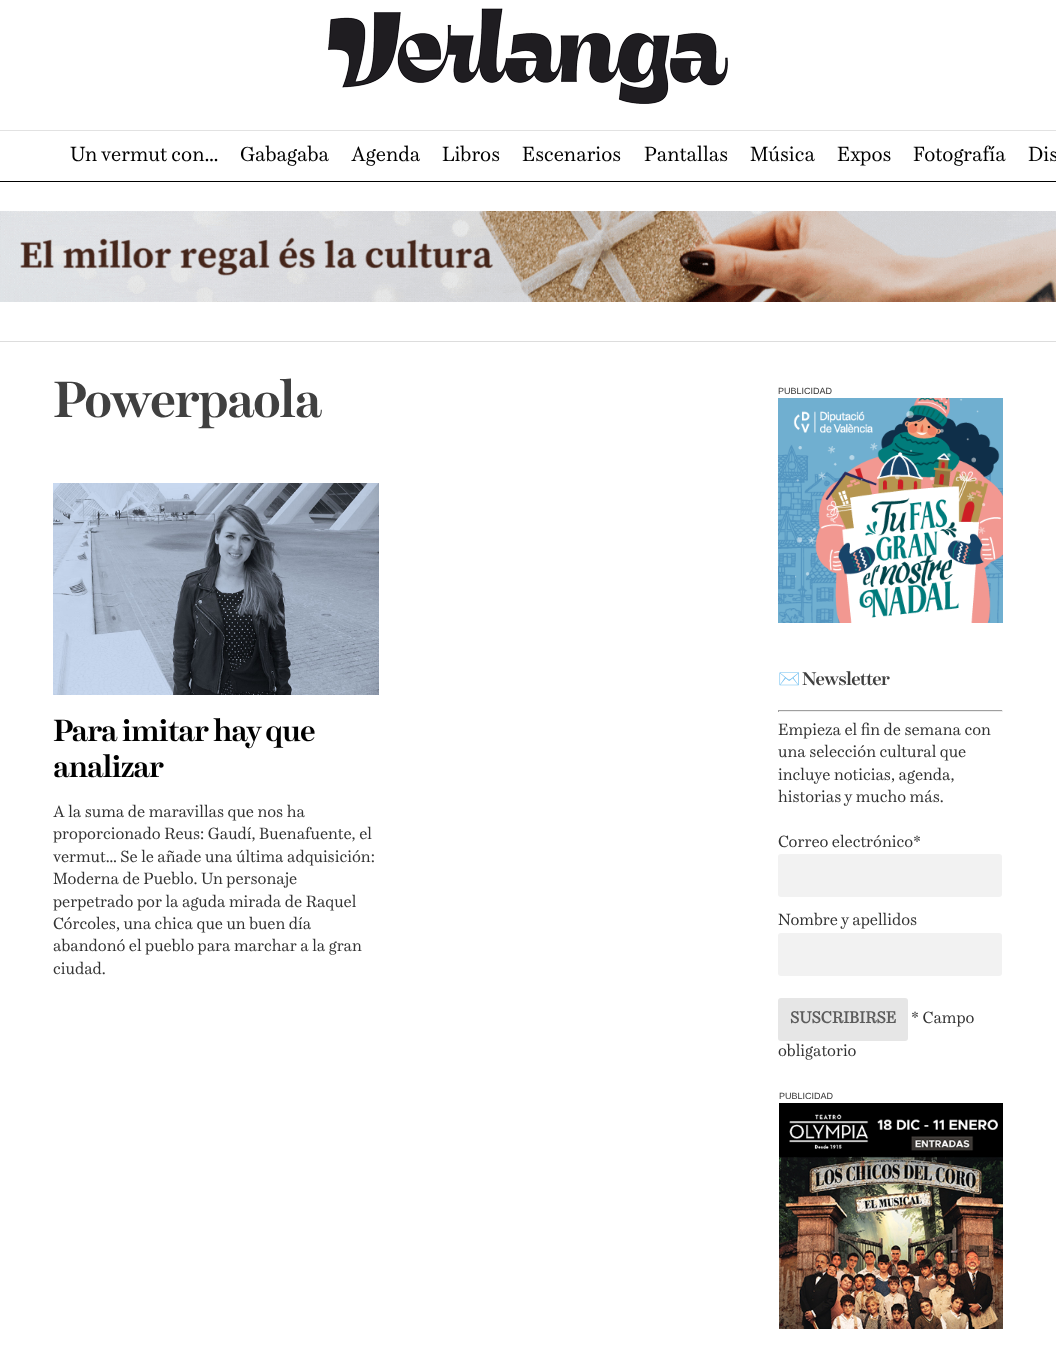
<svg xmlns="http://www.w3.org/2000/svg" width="1056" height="1363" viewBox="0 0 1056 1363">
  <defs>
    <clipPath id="clip1"><rect x="778" y="669" width="225" height="394" rx="3"/></clipPath>
  </defs>
  <rect width="100%" height="100%" fill="#fff"/>
  <image x="328" y="8" width="400" height="96" href="img/1.png"/>
  <path d="M0 130h1056v1H0z" fill="#e2e2e2"/>
  <path d="M0 181h1056v1H0z" fill="#000"/>
  <path d="M0 341h1056v1H0z" fill="#ddd"/>
  <image x="0" y="211" width="1056" height="91" href="img/2.png"/>
  <image x="53" y="483" width="326" height="212" href="img/3.png"/>
  <image x="778" y="398" width="225" height="225" href="img/4.png"/>
  <path d="M778 710h225v1H778z" fill="#9f9f9f"/>
  <path d="M1002 710h1v2H1002z" fill="#eee"/>
  <path d="M778 711h225v1H778z" fill="#eee"/>
  <path d="M778 710h1v2H778z" fill="#9f9f9f"/>
  <rect x="778" y="854" width="224" height="43" rx="3" fill="#f2f2f2"/>
  <rect x="778" y="933" width="224" height="43" rx="3" fill="#f2f2f2"/>
  <rect x="778" y="998" width="130" height="43" rx="3" fill="#e6e6e6"/>
  <image x="779" y="1103" width="224" height="226" href="img/5.png"/>
  <g font-family="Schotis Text" font-size="20" fill="#000">
    <text x="70" y="161">Un vermut con…</text>
    <text x="240" y="161">Gabagaba</text>
    <text x="351" y="161">Agenda</text>
    <text x="442" y="161">Libros</text>
    <text x="522" y="161">Escenarios</text>
    <text x="644" y="161">Pantallas</text>
    <text x="750" y="161">Música</text>
    <text x="837" y="161">Expos</text>
    <text x="913" y="161">Fotografía</text>
    <text x="1028" y="161">Dis</text>
  </g>
  <text x="53" y="417" font-family="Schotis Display" font-size="50" font-weight="bold" letter-spacing="-1.5" fill="#404040">Powerpaola</text>
  <g font-family="Schotis Display" font-size="30" font-weight="bold" letter-spacing="-1" fill="#000">
    <text x="53" y="741">Para imitar hay que</text>
    <text x="53" y="777">analizar</text>
  </g>
  <g font-family="Schotis Text" font-size="16" fill="#333">
    <text x="53" y="817">A la suma de maravillas que nos ha</text>
    <text x="53" y="839">proporcionado Reus: Gaudí, Buenafuente, el</text>
    <text x="53" y="862">vermut… Se le añade una última adquisición:</text>
    <text x="53" y="884">Moderna de Pueblo. Un personaje</text>
    <text x="53" y="907">perpetrado por la aguda mirada de Raquel</text>
    <text x="53" y="929">Córcoles, una chica que un buen día</text>
    <text x="53" y="951">abandonó el pueblo para marchar a la gran</text>
    <text x="53" y="974">ciudad.</text>
  </g>
  <text x="778" y="394" font-family="Liberation Sans" font-size="9" fill="#333">PUBLICIDAD</text>
  <g clip-path="url(#clip1)">
    <text x="778" y="685" font-family="Noto Color Emoji" font-size="18" font-weight="bold" letter-spacing="-0.75" fill="#404040">✉️</text>
  </g>
  <text x="802" y="685" font-family="Schotis Display" font-size="18" font-weight="bold" letter-spacing="-0.75" fill="#404040">Newsletter</text>
  <g font-family="Schotis Text" font-size="16" fill="#333">
    <text x="778" y="735">Empieza el fin de semana con</text>
    <text x="778" y="757">una selección cultural que</text>
    <text x="778" y="780">incluye noticias, agenda,</text>
    <text x="778" y="802">historias y mucho más.</text>
    <text x="778" y="847">Correo electrónico*</text>
    <text x="778" y="925">Nombre y apellidos</text>
  </g>
  <text x="790" y="1023" font-family="Schotis Text" font-size="16" font-weight="bold" fill="#5c5c5c">SUSCRIBIRSE</text>
  <g font-family="Schotis Text" font-size="16" fill="#333">
    <text x="911" y="1023">* Campo</text>
    <text x="778" y="1056">obligatorio</text>
  </g>
  <text x="779" y="1099" font-family="Liberation Sans" font-size="9" fill="#333">PUBLICIDAD</text>
</svg>
